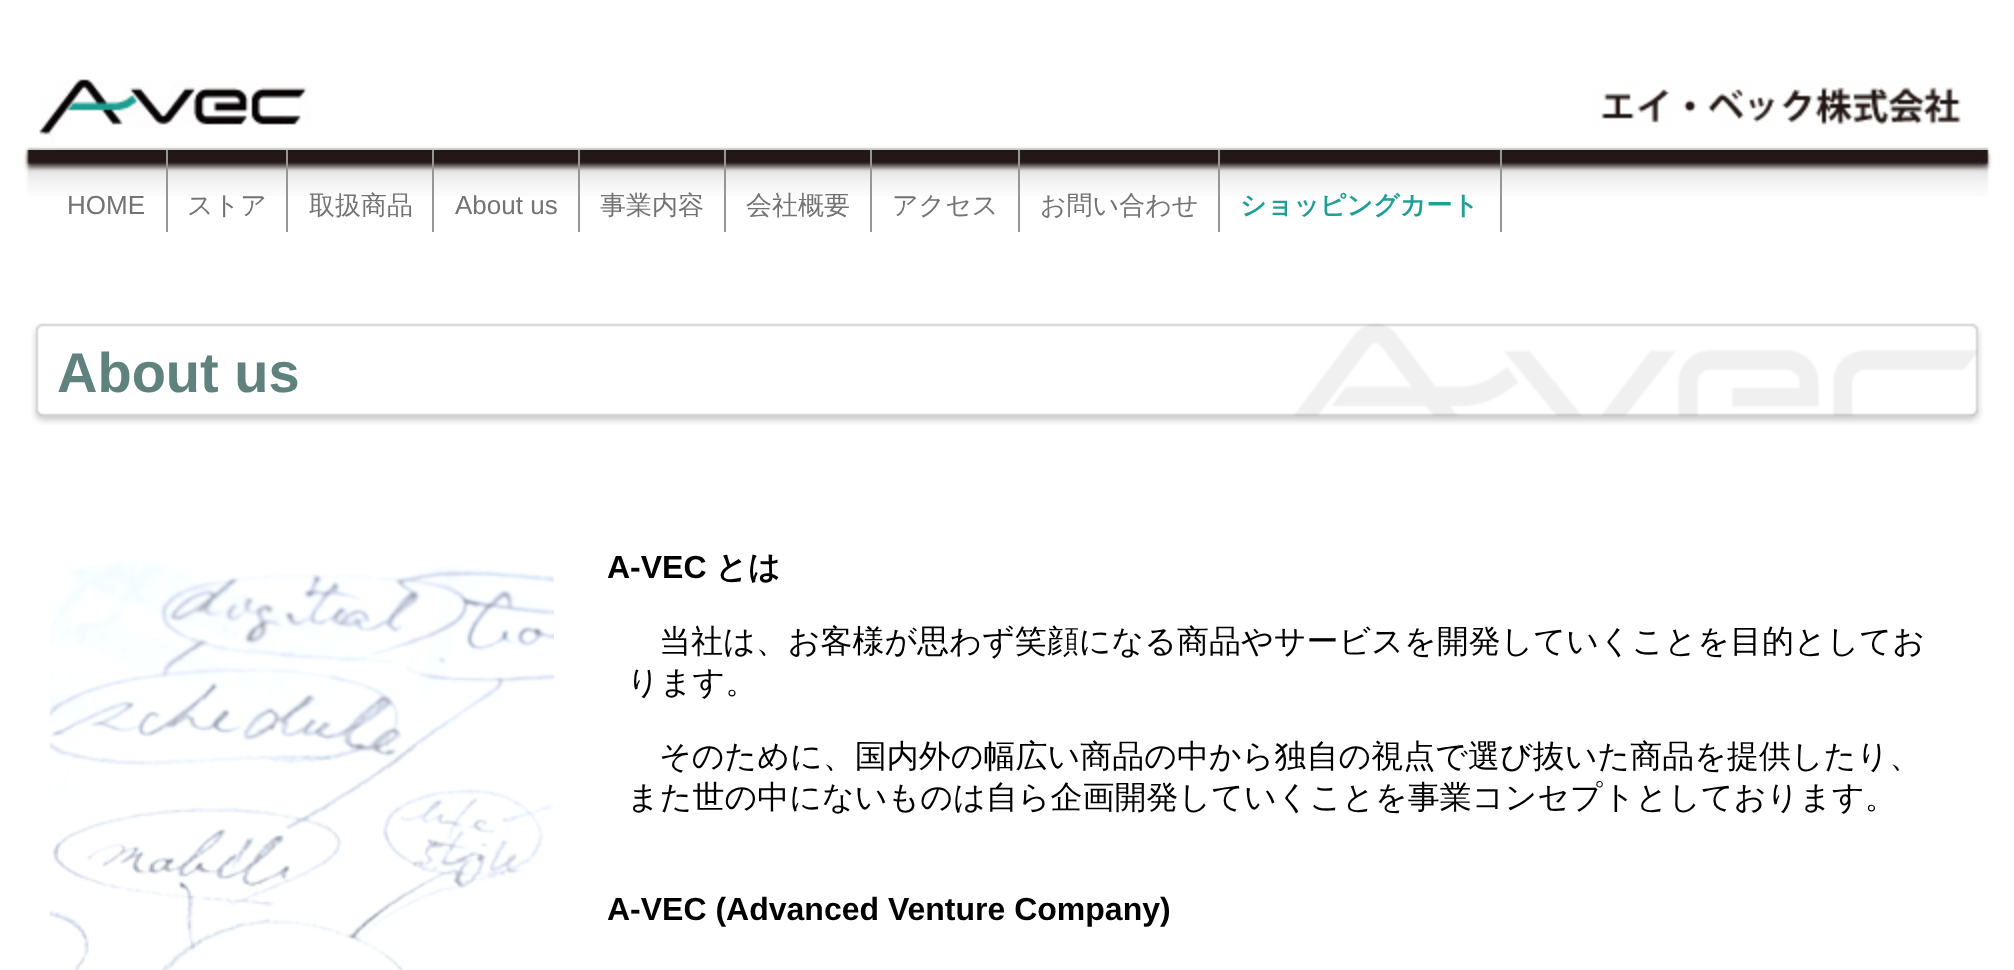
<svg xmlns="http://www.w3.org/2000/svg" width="2014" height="970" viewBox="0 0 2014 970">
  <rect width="100%" height="100%" fill="#fff"/>
  <image x="25" y="79" width="1964" height="71" href="img/1.png"/>
  <image x="23" y="150" width="1969" height="46" href="img/2.png"/>
  <path d="M166 150h2v82H166z" fill="#969696"/>
  <path d="M286 150h2v82H286z" fill="#969696"/>
  <path d="M432 150h2v82H432z" fill="#969696"/>
  <path d="M578 150h2v82H578z" fill="#969696"/>
  <path d="M724 150h2v82H724z" fill="#969696"/>
  <path d="M870 150h2v82H870z" fill="#969696"/>
  <path d="M1018 150h2v82H1018z" fill="#969696"/>
  <path d="M1218 150h2v82H1218z" fill="#969696"/>
  <path d="M1500 150h2v82H1500z" fill="#969696"/>
  <image x="31" y="323" width="1952" height="102" href="img/3.png"/>
  <image x="49" y="559" width="505" height="411" href="img/4.png"/>
  <text x="67" y="214" font-family="Liberation Sans" font-size="26" fill="#747374">HOME</text>
  <g font-family="WenQuanYi Zen Hei" font-size="26" font-weight="500" fill="#747374">
    <text x="187" y="214">ストア</text>
    <text x="309" y="214">取扱商品</text>
  </g>
  <text x="455" y="214" font-family="Liberation Sans" font-size="26" fill="#747374">About us</text>
  <g font-family="WenQuanYi Zen Hei" font-size="26" font-weight="500" fill="#747374">
    <text x="600" y="214">事業内容</text>
    <text x="746" y="214">会社概要</text>
    <text x="892" y="214">アクセス</text>
    <text x="1040" y="214">お問い合わせ</text>
  </g>
  <text x="1240" y="214" font-family="WenQuanYi Zen Hei" font-size="26" font-weight="bold" fill="#209f96">ショッピングカート</text>
  <text x="57" y="392" font-family="Liberation Sans" font-size="56" font-weight="bold" fill="#60827f">About us</text>
  <text x="607" y="578" font-family="Liberation Sans" font-size="32" font-weight="bold" fill="#000">A-VEC</text>
  <text x="715" y="578" font-family="WenQuanYi Zen Hei" font-size="32" font-weight="bold" fill="#000">とは</text>
  <g font-family="WenQuanYi Zen Hei" font-size="32" font-weight="500" fill="#000">
    <text x="659" y="652">当社は、お客様が思わず笑顔になる商品やサービスを開発していくことを目的としてお</text>
    <text x="627" y="693">ります。</text>
    <text x="659" y="767">そのために、国内外の幅広い商品の中から独自の視点で選び抜いた商品を提供したり、</text>
    <text x="627" y="808">また世の中にないものは自ら企画開発していくことを事業コンセプトとしております。</text>
  </g>
  <text x="607" y="920" font-family="Liberation Sans" font-size="32" font-weight="bold" fill="#000">A-VEC (Advanced Venture Company)</text>
</svg>
